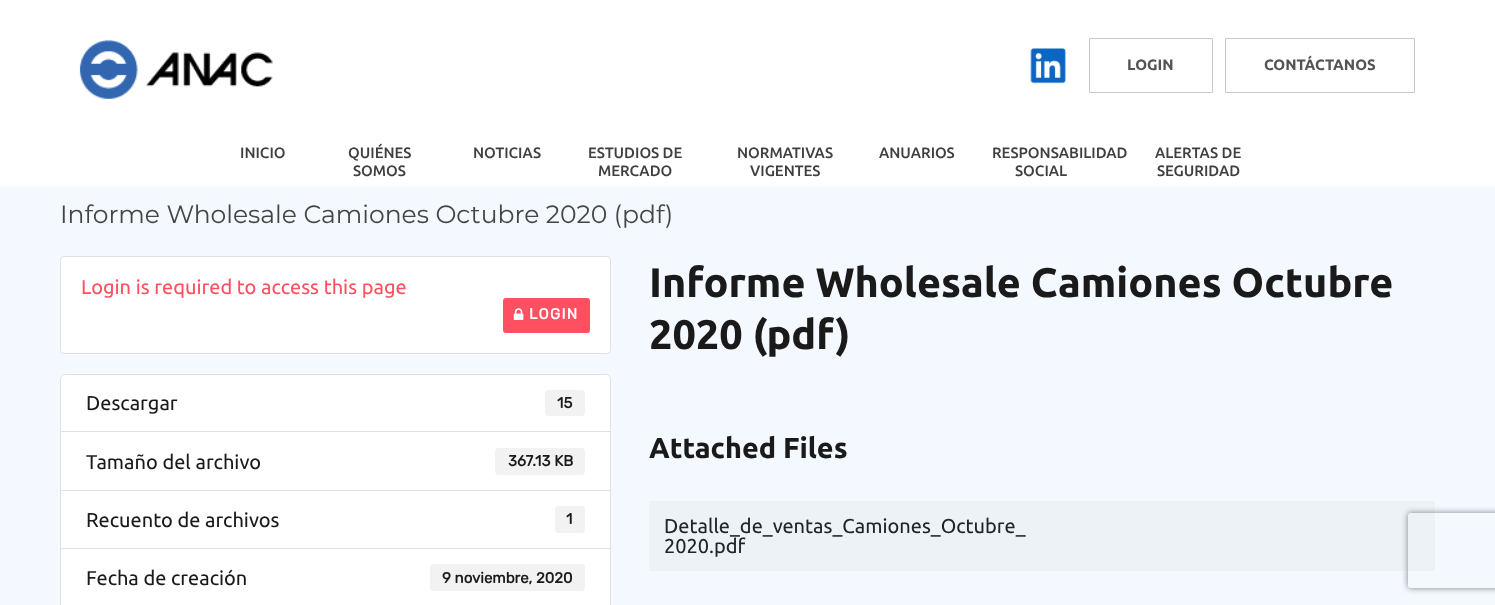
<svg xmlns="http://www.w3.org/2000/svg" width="1495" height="605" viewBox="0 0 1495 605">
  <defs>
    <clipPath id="clip1"><path d="M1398 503H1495V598H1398ZM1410.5 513H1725.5C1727 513 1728 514 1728 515.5V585.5C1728 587 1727 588 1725.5 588H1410.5C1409 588 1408 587 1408 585.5V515.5C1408 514 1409 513 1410.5 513Z" clip-rule="evenodd"/></clipPath>
  </defs>
  <rect width="100%" height="100%" fill="#f4f9ff"/>
  <path d="M0 0h1495v186H0z" fill="#fff"/>
  <image x="79" y="39" width="194" height="60" href="img/1.png"/>
  <image x="1030" y="48" width="36" height="36" href="img/2.png"/>
  <path d="M1089.5 38.5h123v54H1089.5z" fill="none" stroke="#c9c9c9"/>
  <path d="M1225.5 38.5h189v54H1225.5z" fill="none" stroke="#c9c9c9"/>
  <rect x="60" y="256" width="551" height="98" rx="4" fill="#fff"/>
  <rect x="60.5" y="256.5" width="550" height="97" rx="3.5" fill="none" stroke="#0000001f"/>
  <rect x="503.5" y="298.5" width="86" height="34" rx="2" fill="#ff5062" stroke="#ff5062"/>
  <image x="513" y="308" width="11" height="12" href="img/3.png"/>
  <path d="M65 374H606C609 374 611 376 611 379V433H60V379C60 376 62 374 65 374Z" fill="#fff"/>
  <path d="M65 374.5H606C608.5 374.5 610.5 376.5 610.5 379V432.5H60.5V379C60.5 376.5 62.5 374.5 65 374.5Z" fill="none" stroke="#0000001f"/>
  <rect x="545" y="390" width="40" height="26" rx="4" fill="#f2f2f2"/>
  <path d="M60.5 431.5h550v59H60.5z" fill="#fff" stroke="#dfdfdf"/>
  <rect x="495" y="448" width="90" height="27" rx="4" fill="#f2f2f2"/>
  <path d="M60.5 490.5h550v58H60.5z" fill="#fff" stroke="#dfdfdf"/>
  <rect x="555" y="506" width="30" height="27" rx="4" fill="#f2f2f2"/>
  <path d="M60.5 548.5h550v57H60.5z" fill="#fff" stroke="#dfdfdf"/>
  <rect x="430" y="564" width="155" height="27" rx="4" fill="#f2f2f2"/>
  <path d="M649 501h786v70H649z" fill="#edf2f7"/>
  <g clip-path="url(#clip1)">
    <rect x="1408" y="513" width="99" height="75" rx="2.5" fill="#808080" filter="blur(3px)"/>
  </g>
  <g font-family="Ubuntu" font-size="15" font-weight="bold" fill="#545454">
    <text x="1127" y="70">LOGIN</text>
    <text x="1264" y="70">CONTÁCTANOS</text>
  </g>
  <g font-family="Ubuntu" font-size="15" font-weight="500" fill="#3f3f3f">
    <text x="240" y="158">INICIO</text>
    <text x="348" y="158">QUIÉNES</text>
    <text x="353" y="176">SOMOS</text>
    <text x="473" y="158">NOTICIAS</text>
    <text x="588" y="158">ESTUDIOS DE</text>
    <text x="598" y="176">MERCADO</text>
    <text x="737" y="158">NORMATIVAS</text>
    <text x="750" y="176">VIGENTES</text>
    <text x="879" y="158">ANUARIOS</text>
    <text x="992" y="158">RESPONSABILIDAD</text>
    <text x="1015" y="176">SOCIAL</text>
    <text x="1155" y="158">ALERTAS DE</text>
    <text x="1157" y="176">SEGURIDAD</text>
  </g>
  <text x="60" y="223" font-family="Montserrat" font-size="25" fill="#454545">Informe Wholesale Camiones Octubre 2020 (pdf)</text>
  <text x="81" y="294" font-family="Ubuntu" font-size="20" fill="#ff5062">Login is required to access this page</text>
  <text x="529" y="319" font-family="Rubik" font-size="15" font-weight="bold" letter-spacing="1.25" fill="#fff">LOGIN</text>
  <text x="86" y="410" font-family="Ubuntu" font-size="20" fill="#1a1a1a">Descargar</text>
  <text x="557" y="408" font-family="Rubik" font-size="15" font-weight="bold" fill="#1a1a1a">15</text>
  <text x="86" y="469" font-family="Ubuntu" font-size="20" fill="#1a1a1a">Tamaño del archivo</text>
  <text x="508" y="466" font-family="Rubik" font-size="15" font-weight="bold" fill="#1a1a1a">367.13 KB</text>
  <text x="86" y="527" font-family="Ubuntu" font-size="20" fill="#1a1a1a">Recuento de archivos</text>
  <text x="566" y="524" font-family="Rubik" font-size="15" font-weight="bold" fill="#1a1a1a">1</text>
  <text x="86" y="585" font-family="Ubuntu" font-size="20" fill="#1a1a1a">Fecha de creación</text>
  <text x="442" y="583" font-family="Rubik" font-size="15" font-weight="bold" fill="#1a1a1a">9 noviembre, 2020</text>
  <g font-family="Ubuntu" font-size="41.25" font-weight="bold" fill="#1a1a1a">
    <text x="649" y="297">Informe Wholesale Camiones Octubre</text>
    <text x="649" y="349">2020 (pdf)</text>
  </g>
  <text x="649" y="458" font-family="Ubuntu" font-size="28.75" font-weight="bold" fill="#1a1a1a">Attached Files</text>
  <g font-family="Ubuntu" font-size="20" fill="#212529">
    <text x="664" y="533">Detalle_de_ventas_Camiones_Octubre_</text>
    <text x="664" y="553">2020.pdf</text>
  </g>
</svg>
